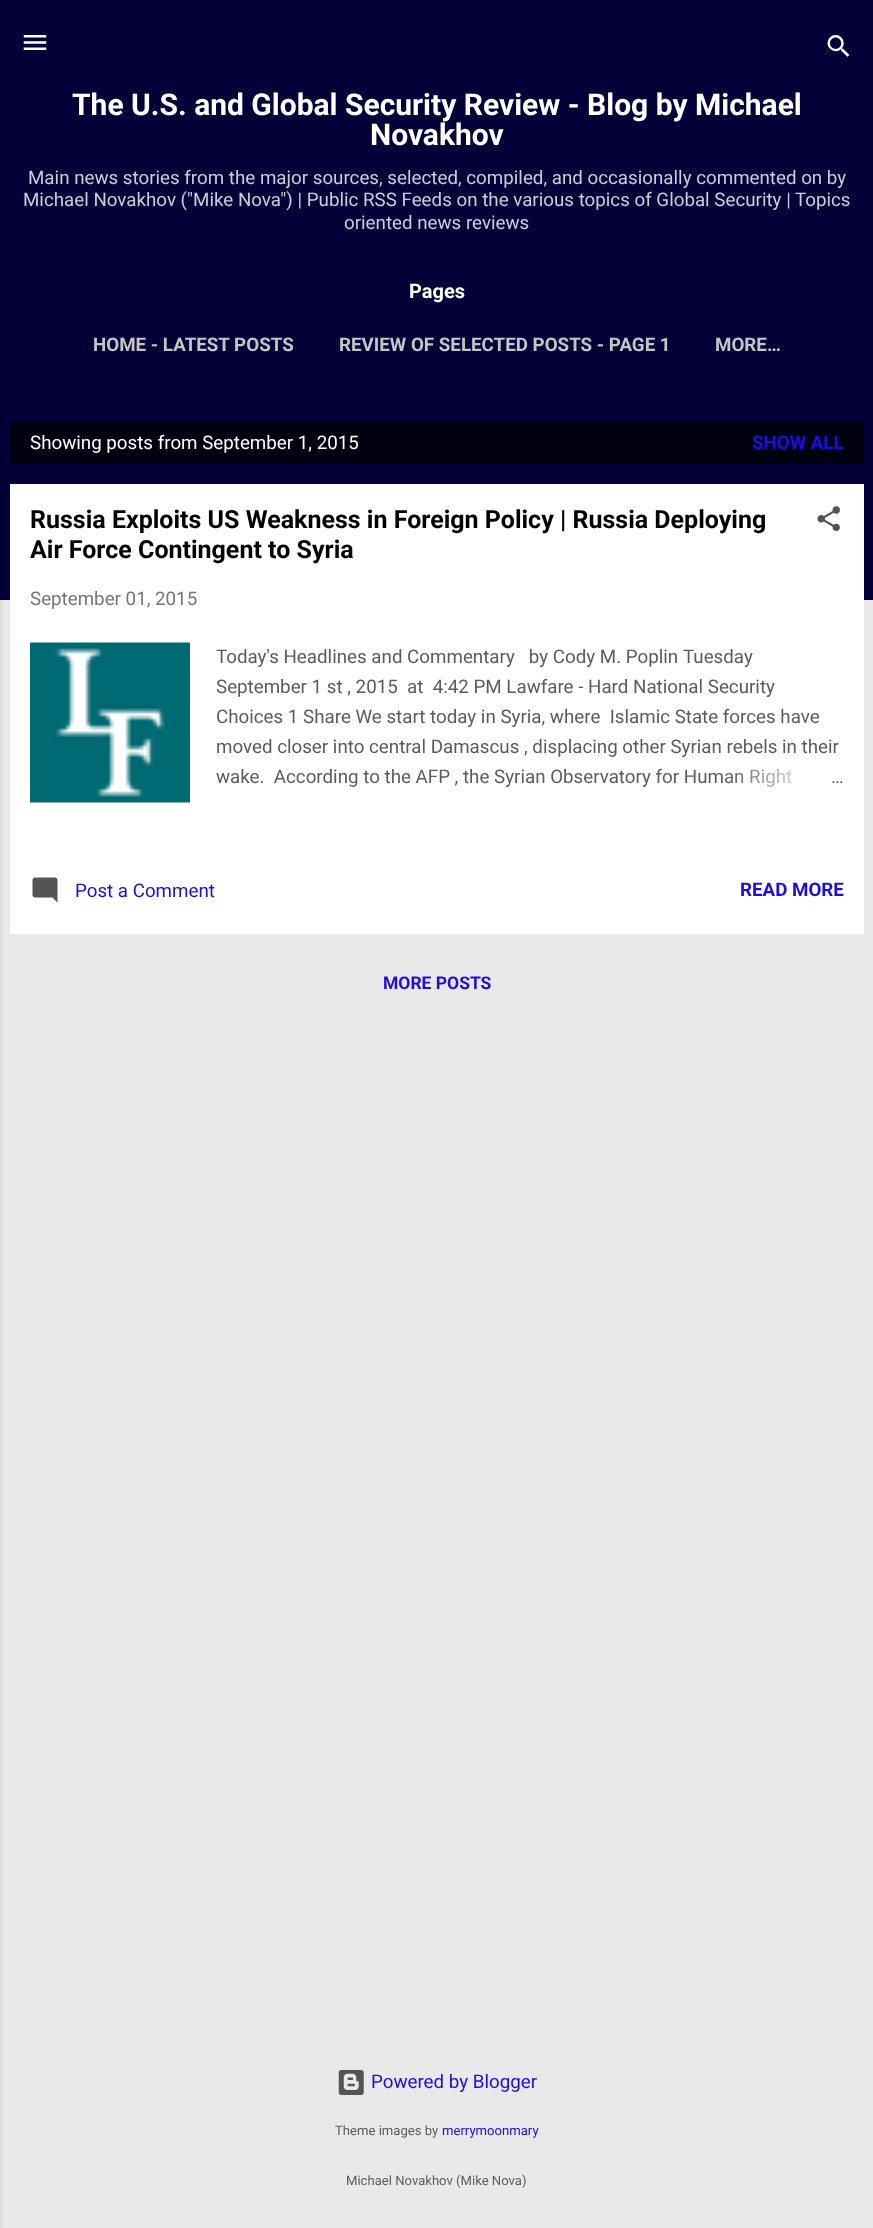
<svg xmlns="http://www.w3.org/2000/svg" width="873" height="2228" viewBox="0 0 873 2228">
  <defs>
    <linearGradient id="g1" gradientUnits="userSpaceOnUse" x1="844" y1="778" x2="724" y2="778"><stop offset="0" stop-color="#fff"/><stop offset="0.2" stop-color="#fff"/><stop offset="1" stop-color="#fff" stop-opacity="0"/></linearGradient>
  </defs>
  <rect width="100%" height="100%" fill="#e9e9e9"/>
  <path d="M0 0h873v600H0z" fill="#040038"/>
  <path d="M-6 1h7v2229H-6z" fill="#0000001a" filter="blur(2px)"/>
  <image x="23" y="35" width="24" height="15" href="img/1.png"/>
  <image x="827" y="35" width="23" height="22" href="img/2.png"/>
  <path d="M10 421h854v43H10z" fill="#010011"/>
  <path d="M10 484h854v450H10z" fill="#fff"/>
  <image x="817" y="506" width="23" height="26" href="img/3.png"/>
  <image x="30" y="642" width="160" height="161" href="img/4.png"/>
  <image x="32" y="877" width="26" height="26" href="img/5.png"/>
  <image x="338" y="2070" width="26" height="25" href="img/6.png"/>
  <g font-family="Roboto" font-size="30" font-weight="bold" fill="#fff">
    <text x="72" y="115">The U.S. and Global Security Review - Blog by Michael</text>
    <text x="370" y="145">Novakhov</text>
  </g>
  <g font-family="Roboto" font-size="18.75" fill="#cdccd7">
    <text x="28" y="184">Main news stories from the major sources, selected, compiled, and occasionally commented on by</text>
    <text x="23" y="206">Michael Novakhov ("Mike Nova") | Public RSS Feeds on the various topics of Global Security | Topics</text>
    <text x="344" y="229">oriented news reviews</text>
  </g>
  <text x="409" y="298" font-family="Roboto" font-size="20" font-weight="bold" fill="#fff">Pages</text>
  <g font-family="Roboto" font-size="18.75" font-weight="bold" fill="#c5c5c5">
    <text x="93" y="351">HOME - LATEST POSTS</text>
    <text x="339" y="351">REVIEW OF SELECTED POSTS - PAGE 1</text>
    <text x="715" y="351">MORE…</text>
  </g>
  <text x="30" y="449" font-family="Roboto" font-size="18.75" fill="#fff">Showing posts from September 1, 2015</text>
  <text x="752" y="449" font-family="Roboto" font-size="18.75" font-weight="bold" fill="#1e0ce7">SHOW ALL</text>
  <g font-family="Roboto" font-size="25" font-weight="bold" fill="#000">
    <text x="30" y="528">Russia Exploits US Weakness in Foreign Policy | Russia Deploying</text>
    <text x="30" y="558">Air Force Contingent to Syria</text>
  </g>
  <text x="30" y="605" font-family="Roboto" font-size="18.75" fill="#767676">September 01, 2015</text>
  <g font-family="Roboto" font-size="18.75" fill="#5c5c5c">
    <text x="216" y="663" xml:space="preserve">Today's Headlines and Commentary   by Cody M. Poplin</text>
    <text x="683" y="663">Tuesday</text>
    <text x="216" y="693" xml:space="preserve">September 1 st , 2015  at  4:42 PM Lawfare - Hard National Security</text>
    <text x="216" y="723" xml:space="preserve">Choices 1 Share We start today in Syria, where  Islamic State forces have</text>
    <text x="216" y="753">moved closer into central Damascus , displacing other Syrian rebels in their</text>
    <text x="216" y="783" xml:space="preserve">wake.  According to the AFP , the Syrian Observatory for Human Right</text>
  </g>
  <path d="M726 768h66v19H726z" fill="url(#g1)"/>
  <text x="831" y="783" font-family="Roboto" font-size="18.75" fill="#5c5c5c">…</text>
  <text x="75" y="897" font-family="Roboto" font-size="18.75" fill="#1e0ce7">Post a Comment</text>
  <text x="740" y="896" font-family="Roboto" font-size="18.75" font-weight="bold" fill="#1e0ce7">READ MORE</text>
  <text x="383" y="989" font-family="Roboto" font-size="17.5" font-weight="bold" fill="#1e0ce7">MORE POSTS</text>
  <text x="371" y="2088" font-family="Roboto" font-size="18.75" fill="#1e0ce7">Powered by Blogger</text>
  <text x="335" y="2135" font-family="Roboto" font-size="13.1" fill="#5c5c5c">Theme images by</text>
  <text x="442" y="2135" font-family="Roboto" font-size="13.1" fill="#1e0ce7">merrymoonmary</text>
  <text x="346" y="2185" font-family="Roboto" font-size="13.1" fill="#5c5c5c">Michael Novakhov (Mike Nova)</text>
</svg>
